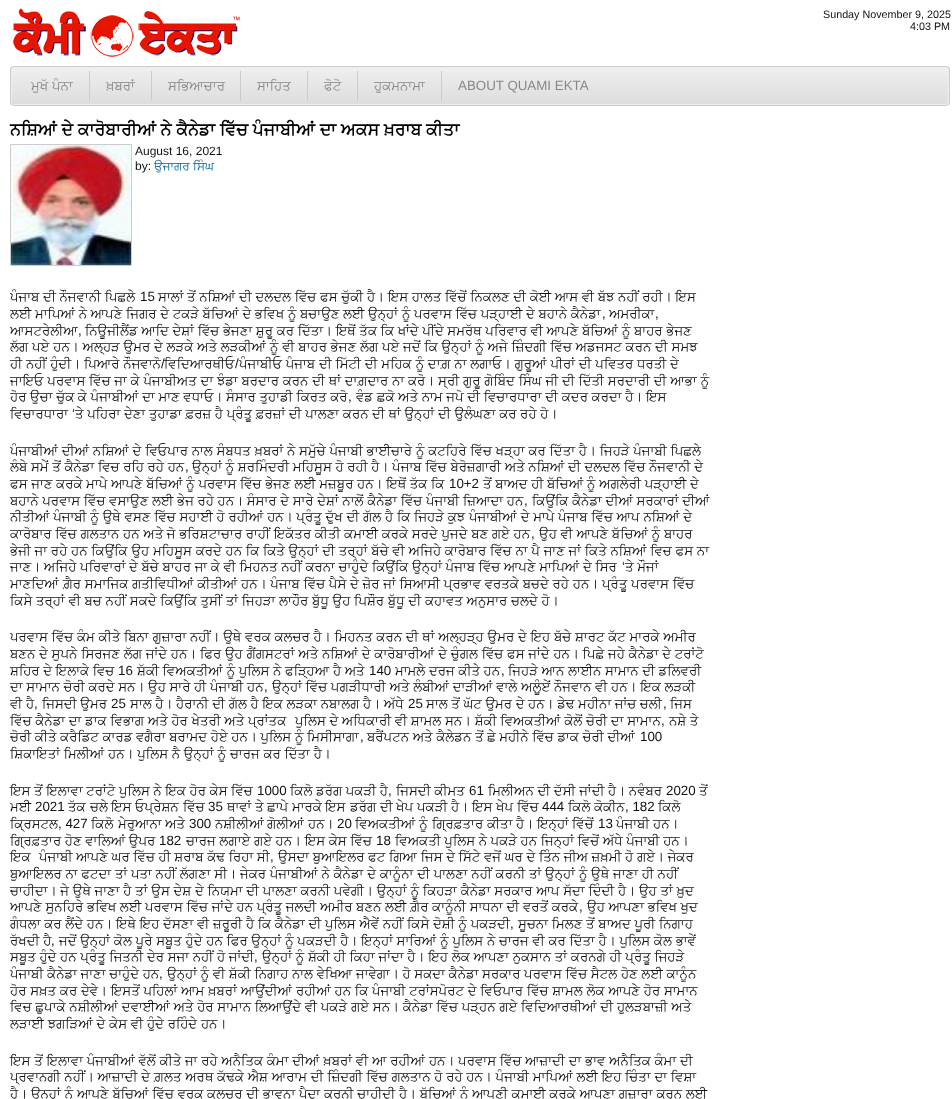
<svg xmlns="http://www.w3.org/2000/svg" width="952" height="1099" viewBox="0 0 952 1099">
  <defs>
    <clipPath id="clip1"><rect x="10" y="66" width="940" height="40" rx="4"/></clipPath>
    <linearGradient id="g1" gradientUnits="userSpaceOnUse" x1="480" y1="67" x2="480" y2="105"><stop offset="0" stop-color="#efefef"/><stop offset="1" stop-color="#ddd"/></linearGradient>
    <clipPath id="clip2"><path d="M10 114h700v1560H10z"/></clipPath>
  </defs>
  <rect width="100%" height="100%" fill="#fff"/>
  <image x="13" y="8" width="227" height="49" href="img/1.png"/>
  <g clip-path="url(#clip1)">
    <path d="M10 67h940v38H10z" fill="url(#g1)"/>
  </g>
  <path d="M12 104C12 105 13 105 14 105H946C948 105 949 104 949 102V70C949 69 949 68 948 68V96C948 98 949 104 945 104Z" fill="#eee"/>
  <path d="M15 68H948C948 67 947 67 946 67H14C12 67 11 68 11 70V102C11 103 11 104 12 104V76C12 74 11 68 15 68Z" fill="#eee"/>
  <rect x="10.5" y="66.5" width="939" height="39" rx="3.5" fill="none" stroke="#ccc"/>
  <path d="M89 71h1v30H89z" fill="#ccc"/>
  <path d="M151 71h1v30H151z" fill="#ccc"/>
  <path d="M240 71h1v30H240z" fill="#ccc"/>
  <path d="M307 71h1v30H307z" fill="#ccc"/>
  <path d="M357 71h1v30H357z" fill="#ccc"/>
  <path d="M441 71h1v30H441z" fill="#ccc"/>
  <path d="M10.5 144.5h121v121H10.5z" fill="none" stroke="#ccc"/>
  <image x="11" y="145" width="120" height="120" href="img/2.png"/>
  <g font-family="Liberation Sans" font-size="10.75" fill="#121212">
    <text x="823" y="18">Sunday November 9, 2025</text>
    <text x="910" y="30">4:03 PM</text>
  </g>
  <g font-family="FreeSans" font-size="13.33" fill="#888">
    <text x="31" y="90" word-spacing="0.4">ਮੁਖੱ ਪੰਨਾ</text>
    <text x="106" y="90">ਖ਼ਬਰਾਂ</text>
    <text x="168" y="90">ਸਭਿਆਚਾਰ</text>
    <text x="257" y="90">ਸਾਹਿਤ</text>
    <text x="324" y="90">ਫੋਟੋ</text>
    <text x="374" y="90">ਹੁਕਮਨਾਮਾ</text>
  </g>
  <text x="458" y="90" font-family="Liberation Sans" font-size="13.33" fill="#888">ABOUT QUAMI EKTA</text>
  <text x="10" y="135" word-spacing="0.5" font-family="FreeSans" font-size="17.3" font-weight="bold" fill="#000">ਨਸ਼ਿਆਂ ਦੇ ਕਾਰੋਬਾਰੀਆਂ ਨੇ ਕੈਨੇਡਾ ਵਿੱਚ ਪੰਜਾਬੀਆਂ ਦਾ ਅਕਸ ਖ਼ਰਾਬ ਕੀਤਾ</text>
  <g font-family="Liberation Sans" font-size="12" fill="#121212">
    <text x="135" y="155">August 16, 2021</text>
    <text x="135" y="170">by:</text>
  </g>
  <text x="154" y="170" word-spacing="0.3" font-family="FreeSans" font-size="12" fill="#069">ਉਜਾਗਰ ਸਿੰਘ</text>
  <g clip-path="url(#clip2)">
    <text x="10" y="301" word-spacing="0.3" font-family="FreeSans" font-size="13.33" fill="#121212">ਪੰਜਾਬ ਦੀ ਨੌਜਵਾਨੀ ਪਿਛਲੇ</text>
  </g>
  <text x="140" y="301" font-family="Liberation Sans" font-size="13.33" fill="#121212">15</text>
  <g font-family="FreeSans" font-size="13.33" fill="#121212">
    <text x="158" y="301" word-spacing="0.3">ਸਾਲਾਂ ਤੋਂ ਨਸ਼ਿਆਂ ਦੀ ਦਲਦਲ ਵਿੱਚ ਫਸ ਚੁੱਕੀ ਹੈ। ਇਸ ਹਾਲਤ ਵਿੱਚੋਂ ਨਿਕਲਣ ਦੀ ਕੋਈ ਆਸ ਵੀ ਬੱਝ ਨਹੀਂ ਰਹੀ। ਇਸ</text>
    <text x="10" y="318" word-spacing="0.3">ਲਈ ਮਾਪਿਆਂ ਨੇ ਆਪਣੇ ਜਿਗਰ ਦੇ ਟਕੜੇ ਬੱਚਿਆਂ ਦੇ ਭਵਿਖ ਨੂੰ ਬਚਾਉਣ ਲਈ ਉਨ੍ਹਾਂ ਨੂੰ ਪਰਵਾਸ ਵਿੱਚ ਪੜ੍ਹਾਈ ਦੇ ਬਹਾਨੇ ਕੈਨੇਡਾ</text>
  </g>
  <text x="602" y="318" font-family="Liberation Sans" font-size="13.33" fill="#121212">,</text>
  <text x="609" y="318" font-family="FreeSans" font-size="13.33" fill="#121212">ਅਮਰੀਕਾ</text>
  <text x="655" y="318" font-family="Liberation Sans" font-size="13.33" fill="#121212">,</text>
  <text x="10" y="335" font-family="FreeSans" font-size="13.33" fill="#121212">ਆਸਟਰੇਲੀਆ</text>
  <text x="78" y="335" font-family="Liberation Sans" font-size="13.33" fill="#121212">,</text>
  <text x="85" y="335" word-spacing="0.3" font-family="FreeSans" font-size="13.33" fill="#121212">ਨਿਊਜੀਲੈਂਡ ਆਦਿ ਦੇਸ਼ਾਂ ਵਿੱਚ ਭੇਜਣਾ ਸ਼ੁਰੂ ਕਰ ਦਿੱਤਾ। ਇਥੋਂ ਤੱਕ ਕਿ ਖਾਂਦੇ ਪੀਂਦੇ ਸਮਰੱਥ ਪਰਿਵਾਰ ਵੀ ਆਪਣੇ ਬੱਚਿਆਂ ਨੂੰ ਬਾਹਰ ਭੇਜਣ</text>
  <g clip-path="url(#clip2)">
    <g font-family="FreeSans" font-size="13.33" fill="#121212">
      <text x="10" y="351" word-spacing="0.4">ਲੱਗ ਪਏ ਹਨ। ਅਲ੍ਹੜ ਉਮਰ ਦੇ ਲੜਕੇ ਅਤੇ ਲੜਕੀਆਂ ਨੂੰ ਵੀ ਬਾਹਰ ਭੇਜਣ ਲੱਗ ਪਏ ਜਦੋਂ ਕਿ ਉਨ੍ਹਾਂ ਨੂੰ ਅਜੇ ਜ਼ਿੰਦਗੀ ਵਿੱਚ ਅਡਜਸਟ ਕਰਨ ਦੀ ਸਮਝ</text>
      <text x="10" y="368" word-spacing="0.4">ਹੀ ਨਹੀਂ ਹੁੰਦੀ। ਪਿਆਰੇ ਨੌਜਵਾਨੋ</text>
    </g>
  </g>
  <text x="161" y="368" font-family="Liberation Sans" font-size="13.33" fill="#121212">/</text>
  <text x="164" y="368" font-family="FreeSans" font-size="13.33" fill="#121212">ਵਿਦਿਆਰਥੀਓ</text>
  <text x="235" y="368" font-family="Liberation Sans" font-size="13.33" fill="#121212">/</text>
  <g font-family="FreeSans" font-size="13.33" fill="#121212">
    <text x="239" y="368" word-spacing="0.4">ਪੰਜਾਬੀਓ ਪੰਜਾਬ ਦੀ ਮਿੱਟੀ ਦੀ ਮਹਿਕ ਨੂੰ ਦਾਗ਼ ਨਾ ਲਗਾਓ। ਗੁਰੂਆਂ ਪੀਰਾਂ ਦੀ ਪਵਿਤਰ ਧਰਤੀ ਦੇ</text>
    <text x="10" y="385" word-spacing="0.4">ਜਾਇਓ ਪਰਵਾਸ ਵਿੱਚ ਜਾ ਕੇ ਪੰਜਾਬੀਅਤ ਦਾ ਝੰਡਾ ਬਰਦਾਰ ਕਰਨ ਦੀ ਥਾਂ ਦਾਗ਼ਦਾਰ ਨਾ ਕਰੋ। ਸ੍ਰੀ ਗੁਰੂ ਗੋਬਿੰਦ ਸਿੰਘ ਜੀ ਦੀ ਦਿੱਤੀ ਸਰਦਾਰੀ ਦੀ ਆਭਾ ਨੂੰ</text>
  </g>
  <g clip-path="url(#clip2)">
    <text x="10" y="401" word-spacing="0.3" font-family="FreeSans" font-size="13.33" fill="#121212">ਹੋਰ ਉਚਾ ਚੁੱਕ ਕੇ ਪੰਜਾਬੀਆਂ ਦਾ ਮਾਣ ਵਧਾਓ। ਸੰਸਾਰ ਤੁਹਾਡੀ ਕਿਰਤ ਕਰੋ</text>
  </g>
  <text x="348" y="401" font-family="Liberation Sans" font-size="13.33" fill="#121212">,</text>
  <g font-family="FreeSans" font-size="13.33" fill="#121212">
    <text x="356" y="401" word-spacing="0.3">ਵੰਡ ਛਕੋ ਅਤੇ ਨਾਮ ਜਪੋ ਦੀ ਵਿਚਾਰਧਾਰਾ ਦੀ ਕਦਰ ਕਰਦਾ ਹੈ। ਇਸ</text>
    <text x="10" y="418">ਵਿਚਾਰਧਾਰਾ</text>
  </g>
  <text x="72" y="418" font-family="Liberation Sans" font-size="13.33" fill="#121212">‘</text>
  <text x="75" y="418" word-spacing="0.3" font-family="FreeSans" font-size="13.33" fill="#121212">ਤੇ ਪਹਿਰਾ ਦੇਣਾ ਤੁਹਾਡਾ ਫ਼ਰਜ਼ ਹੈ ਪ੍ਰੰਤੂ ਫ਼ਰਜ਼ਾਂ ਦੀ ਪਾਲਣਾ ਕਰਨ ਦੀ ਥਾਂ ਉਨ੍ਹਾਂ ਦੀ ਉਲੰਘਣਾ ਕਰ ਰਹੇ ਹੋ।</text>
  <g clip-path="url(#clip2)">
    <g font-family="FreeSans" font-size="13.33" fill="#121212">
      <text x="10" y="455" word-spacing="0.4">ਪੰਜਾਬੀਆਂ ਦੀਆਂ ਨਸ਼ਿਆਂ ਦੇ ਵਿਓਪਾਰ ਨਾਲ ਸੰਬਧਤ ਖ਼ਬਰਾਂ ਨੇ ਸਮੁੱਚੇ ਪੰਜਾਬੀ ਭਾਈਚਾਰੇ ਨੂੰ ਕਟਹਿਰੇ ਵਿੱਚ ਖੜ੍ਹਾ ਕਰ ਦਿੱਤਾ ਹੈ। ਜਿਹੜੇ ਪੰਜਾਬੀ ਪਿਛਲੇ</text>
      <text x="10" y="471" word-spacing="0.3">ਲੰਬੇ ਸਮੇਂ ਤੋਂ ਕੈਨੇਡਾ ਵਿਚ ਰਹਿ ਰਹੇ ਹਨ</text>
    </g>
  </g>
  <text x="185" y="471" font-family="Liberation Sans" font-size="13.33" fill="#121212">,</text>
  <g font-family="FreeSans" font-size="13.33" fill="#121212">
    <text x="192" y="471" word-spacing="0.3">ਉਨ੍ਹਾਂ ਨੂੰ ਸ਼ਰਮਿੰਦਰੀ ਮਹਿਸੂਸ ਹੋ ਰਹੀ ਹੈ। ਪੰਜਾਬ ਵਿੱਚ ਬੇਰੋਜ਼ਗਾਰੀ ਅਤੇ ਨਸ਼ਿਆਂ ਦੀ ਦਲਦਲ ਵਿੱਚ ਨੌਜਵਾਨੀ ਦੇ</text>
    <text x="10" y="488" word-spacing="0.3">ਫਸ ਜਾਣ ਕਰਕੇ ਮਾਪੇ ਆਪਣੇ ਬੱਚਿਆਂ ਨੂੰ ਪਰਵਾਸ ਵਿੱਚ ਭੇਜਣ ਲਈ ਮਜ਼ਬੂਰ ਹਨ। ਇਥੋਂ ਤੱਕ ਕਿ</text>
  </g>
  <text x="449" y="488" font-family="Liberation Sans" font-size="13.33" fill="#121212">10+2</text>
  <g font-family="FreeSans" font-size="13.33" fill="#121212">
    <text x="483" y="488" word-spacing="0.3">ਤੋਂ ਬਾਅਦ ਹੀ ਬੱਚਿਆਂ ਨੂੰ ਅਗਲੇਰੀ ਪੜ੍ਹਾਈ ਦੇ</text>
    <text x="10" y="505" word-spacing="0.3">ਬਹਾਨੇ ਪਰਵਾਸ ਵਿੱਚ ਵਸਾਉਣ ਲਈ ਭੇਜ ਰਹੇ ਹਨ। ਸੰਸਾਰ ਦੇ ਸਾਰੇ ਦੇਸ਼ਾਂ ਨਾਲੋਂ ਕੈਨੇਡਾ ਵਿੱਚ ਪੰਜਾਬੀ ਜ਼ਿਆਦਾ ਹਨ</text>
  </g>
  <text x="524" y="505" font-family="Liberation Sans" font-size="13.33" fill="#121212">,</text>
  <text x="532" y="505" word-spacing="0.3" font-family="FreeSans" font-size="13.33" fill="#121212">ਕਿਉਂਕਿ ਕੈਨੇਡਾ ਦੀਆਂ ਸਰਕਾਰਾਂ ਦੀਆਂ</text>
  <g clip-path="url(#clip2)">
    <text x="10" y="521" word-spacing="0.4" font-family="FreeSans" font-size="13.33" fill="#121212">ਨੀਤੀਆਂ ਪੰਜਾਬੀ ਨੂੰ ਉਥੇ ਵਸਣ ਵਿੱਚ ਸਹਾਈ ਹੋ ਰਹੀਆਂ ਹਨ। ਪ੍ਰੰਤੂ ਦੁੱਖ ਦੀ ਗੱਲ ਹੈ ਕਿ ਜਿਹੜੇ ਕੁਝ ਪੰਜਾਬੀਆਂ ਦੇ ਮਾਪੇ ਪੰਜਾਬ ਵਿੱਚ ਆਪ ਨਸ਼ਿਆਂ ਦੇ</text>
  </g>
  <text x="10" y="538" word-spacing="0.3" font-family="FreeSans" font-size="13.33" fill="#121212">ਕਾਰੋਬਾਰ ਵਿੱਚ ਗਲਤਾਨ ਹਨ ਅਤੇ ਜੋ ਭਰਿਸ਼ਟਾਚਾਰ ਰਾਹੀਂ ਇਕੱਤਰ ਕੀਤੀ ਕਮਾਈ ਕਰਕੇ ਸਰਦੇ ਪੁਜਦੇ ਬਣ ਗਏ ਹਨ</text>
  <text x="531" y="538" font-family="Liberation Sans" font-size="13.33" fill="#121212">,</text>
  <text x="539" y="538" word-spacing="0.3" font-family="FreeSans" font-size="13.33" fill="#121212">ਉਹ ਵੀ ਆਪਣੇ ਬੱਚਿਆਂ ਨੂੰ ਬਾਹਰ</text>
  <g clip-path="url(#clip2)">
    <text x="10" y="555" word-spacing="0.4" font-family="FreeSans" font-size="13.33" fill="#121212">ਭੇਜੀ ਜਾ ਰਹੇ ਹਨ ਕਿਉਂਕਿ ਉਹ ਮਹਿਸੂਸ ਕਰਦੇ ਹਨ ਕਿ ਕਿਤੇ ਉਨ੍ਹਾਂ ਦੀ ਤਰ੍ਹਾਂ ਬੱਚੇ ਵੀ ਅਜਿਹੇ ਕਾਰੋਬਾਰ ਵਿੱਚ ਨਾ ਪੈ ਜਾਣ ਜਾਂ ਕਿਤੇ ਨਸ਼ਿਆਂ ਵਿਚ ਫਸ ਨਾ</text>
  </g>
  <text x="10" y="571" word-spacing="0.3" font-family="FreeSans" font-size="13.33" fill="#121212">ਜਾਣ। ਅਜਿਹੇ ਪਰਿਵਾਰਾਂ ਦੇ ਬੱਚੇ ਬਾਹਰ ਜਾ ਕੇ ਵੀ ਮਿਹਨਤ ਨਹੀਂ ਕਰਨਾ ਚਾਹੁੰਦੇ ਕਿਉਂਕਿ ਉਨ੍ਹਾਂ ਪੰਜਾਬ ਵਿੱਚ ਆਪਣੇ ਮਾਪਿਆਂ ਦੇ ਸਿਰ</text>
  <text x="622" y="571" font-family="Liberation Sans" font-size="13.33" fill="#121212">‘</text>
  <g font-family="FreeSans" font-size="13.33" fill="#121212">
    <text x="625" y="571" word-spacing="0.3">ਤੇ ਮੌਜਾਂ</text>
    <text x="10" y="588" word-spacing="0.4">ਮਾਣਦਿਆਂ ਗ਼ੈਰ ਸਮਾਜਿਕ ਗਤੀਵਿਧੀਆਂ ਕੀਤੀਆਂ ਹਨ। ਪੰਜਾਬ ਵਿੱਚ ਪੈਸੇ ਦੇ ਜ਼ੋਰ ਜਾਂ ਸਿਆਸੀ ਪ੍ਰਭਾਵ ਵਰਤਕੇ ਬਚਦੇ ਰਹੇ ਹਨ। ਪ੍ਰੰਤੂ ਪਰਵਾਸ ਵਿੱਚ</text>
    <text x="10" y="605" word-spacing="0.4">ਕਿਸੇ ਤਰ੍ਹਾਂ ਵੀ ਬਚ ਨਹੀਂ ਸਕਦੇ ਕਿਉਂਕਿ ਤੁਸੀਂ ਤਾਂ ਜਿਹੜਾ ਲਾਹੌਰ ਬੁੱਧੂ ਉਹ ਪਿਸ਼ੌਰ ਬੁੱਧੂ ਦੀ ਕਹਾਵਤ ਅਨੁਸਾਰ ਚਲਦੇ ਹੋ।</text>
    <text x="10" y="641" word-spacing="0.4">ਪਰਵਾਸ ਵਿੱਚ ਕੰਮ ਕੀਤੇ ਬਿਨਾ ਗੁਜ਼ਾਰਾ ਨਹੀਂ। ਉਥੇ ਵਰਕ ਕਲਚਰ ਹੈ। ਮਿਹਨਤ ਕਰਨ ਦੀ ਥਾਂ ਅਲ੍ਹੜ੍ਹ ਉਮਰ ਦੇ ਇਹ ਬੱਚੇ ਸ਼ਾਰਟ ਕੱਟ ਮਾਰਕੇ ਅਮੀਰ</text>
    <text x="10" y="658" word-spacing="0.4">ਬਣਨ ਦੇ ਸੁਪਨੇ ਸਿਰਜਣ ਲੱਗ ਜਾਂਦੇ ਹਨ। ਫਿਰ ਉਹ ਗੈਂਗਸਟਰਾਂ ਅਤੇ ਨਸ਼ਿਆਂ ਦੇ ਕਾਰੋਬਾਰੀਆਂ ਦੇ ਚੁੰਗਲ ਵਿੱਚ ਫਸ ਜਾਂਦੇ ਹਨ। ਪਿਛੇ ਜਹੇ ਕੈਨੇਡਾ ਦੇ ਟਰਾਂਟੋ</text>
    <text x="10" y="675" word-spacing="0.25">ਸ਼ਹਿਰ ਦੇ ਇਲਾਕੇ ਵਿਚ</text>
  </g>
  <text x="118" y="675" font-family="Liberation Sans" font-size="13.33" fill="#121212">16</text>
  <text x="137" y="675" word-spacing="0.25" font-family="FreeSans" font-size="13.33" fill="#121212">ਸ਼ੱਕੀ ਵਿਅਕਤੀਆਂ ਨੂੰ ਪੁਲਿਸ ਨੇ ਫੜ੍ਹਿਆ ਹੈ ਅਤੇ</text>
  <text x="369" y="675" font-family="Liberation Sans" font-size="13.33" fill="#121212">140</text>
  <text x="395" y="675" word-spacing="0.25" font-family="FreeSans" font-size="13.33" fill="#121212">ਮਾਮਲੇ ਦਰਜ ਕੀਤੇ ਹਨ</text>
  <text x="501" y="675" font-family="Liberation Sans" font-size="13.33" fill="#121212">,</text>
  <g font-family="FreeSans" font-size="13.33" fill="#121212">
    <text x="508" y="675" word-spacing="0.25">ਜਿਹੜੇ ਆਨ ਲਾਈਨ ਸਾਮਾਨ ਦੀ ਡਲਿਵਰੀ</text>
    <text x="10" y="691" word-spacing="0.3">ਦਾ ਸਾਮਾਨ ਚੋਰੀ ਕਰਦੇ ਸਨ। ਉਹ ਸਾਰੇ ਹੀ ਪੰਜਾਬੀ ਹਨ</text>
  </g>
  <text x="264" y="691" font-family="Liberation Sans" font-size="13.33" fill="#121212">,</text>
  <text x="272" y="691" word-spacing="0.3" font-family="FreeSans" font-size="13.33" fill="#121212">ਉਨ੍ਹਾਂ ਵਿੱਚ ਪਗੜੀਧਾਰੀ ਅਤੇ ਲੰਬੀਆਂ ਦਾੜੀਆਂ ਵਾਲੇ ਅਲੂੰਏਂ ਨੌਜਵਾਨ ਵੀ ਹਨ। ਇਕ ਲੜਕੀ</text>
  <g clip-path="url(#clip2)">
    <text x="10" y="708" word-spacing="0.25" font-family="FreeSans" font-size="13.33" fill="#121212">ਵੀ ਹੈ</text>
  </g>
  <text x="34" y="708" font-family="Liberation Sans" font-size="13.33" fill="#121212">,</text>
  <text x="42" y="708" word-spacing="0.25" font-family="FreeSans" font-size="13.33" fill="#121212">ਜਿਸਦੀ ਉਮਰ</text>
  <text x="111" y="708" font-family="Liberation Sans" font-size="13.33" fill="#121212">25</text>
  <text x="130" y="708" word-spacing="0.25" font-family="FreeSans" font-size="13.33" fill="#121212">ਸਾਲ ਹੈ। ਹੈਰਾਨੀ ਦੀ ਗੱਲ ਹੈ ਇਕ ਲੜਕਾ ਨਬਾਲਗ ਹੈ। ਅੱਧੇ</text>
  <text x="408" y="708" font-family="Liberation Sans" font-size="13.33" fill="#121212">25</text>
  <text x="426" y="708" word-spacing="0.25" font-family="FreeSans" font-size="13.33" fill="#121212">ਸਾਲ ਤੋਂ ਘੱਟ ਉਮਰ ਦੇ ਹਨ। ਡੇਢ ਮਹੀਨਾ ਜਾਂਚ ਚਲੀ</text>
  <text x="663" y="708" font-family="Liberation Sans" font-size="13.33" fill="#121212">,</text>
  <text x="670" y="708" font-family="FreeSans" font-size="13.33" fill="#121212">ਜਿਸ</text>
  <g clip-path="url(#clip2)">
    <text x="10" y="725" word-spacing="0.3" font-family="FreeSans" font-size="13.33" fill="#121212">ਵਿੱਚ ਕੈਨੇਡਾ ਦਾ ਡਾਕ ਵਿਭਾਗ ਅਤੇ ਹੋਰ ਖੇਤਰੀ ਅਤੇ ਪ੍ਰਾਂਤਕ</text>
  </g>
  <text x="295" y="725" word-spacing="0.3" font-family="FreeSans" font-size="13.33" fill="#121212">ਪੁਲਿਸ ਦੇ ਅਧਿਕਾਰੀ ਵੀ ਸ਼ਾਮਲ ਸਨ। ਸ਼ੱਕੀ ਵਿਅਕਤੀਆਂ ਕੋਲੋਂ ਚੋਰੀ ਦਾ ਸਾਮਾਨ</text>
  <text x="661" y="725" font-family="Liberation Sans" font-size="13.33" fill="#121212">,</text>
  <text x="669" y="725" word-spacing="0.3" font-family="FreeSans" font-size="13.33" fill="#121212">ਨਸ਼ੇ ਤੇ</text>
  <g clip-path="url(#clip2)">
    <text x="10" y="741" word-spacing="0.25" font-family="FreeSans" font-size="13.33" fill="#121212">ਚੋਰੀ ਕੀਤੇ ਕਰੈਡਿਟ ਕਾਰਡ ਵਗੈਰਾ ਬਰਾਮਦ ਹੋਏ ਹਨ। ਪੁਲਿਸ ਨੂੰ ਮਿਸੀਸਾਗਾ</text>
  </g>
  <text x="360" y="741" font-family="Liberation Sans" font-size="13.33" fill="#121212">,</text>
  <text x="367" y="741" word-spacing="0.25" font-family="FreeSans" font-size="13.33" fill="#121212">ਬਰੈਂਪਟਨ ਅਤੇ ਕੈਲੇਡਨ ਤੋਂ ਛੇ ਮਹੀਨੇ ਵਿੱਚ ਡਾਕ ਚੋਰੀ ਦੀਆਂ</text>
  <text x="640" y="741" font-family="Liberation Sans" font-size="13.33" fill="#121212">100</text>
  <g font-family="FreeSans" font-size="13.33" fill="#121212">
    <text x="10" y="758" word-spacing="0.4">ਸ਼ਿਕਾਇਤਾਂ ਮਿਲੀਆਂ ਹਨ। ਪੁਲਿਸ ਨੈ ਉਨ੍ਹਾਂ ਨੂੰ ਚਾਰਜ ਕਰ ਦਿੱਤਾ ਹੈ।</text>
    <text x="10" y="795" word-spacing="0.25">ਇਸ ਤੋਂ ਇਲਾਵਾ ਟਰਾਂਟੋ ਪੁਲਿਸ ਨੇ ਇਕ ਹੋਰ ਕੇਸ ਵਿੱਚ</text>
  </g>
  <text x="257" y="795" font-family="Liberation Sans" font-size="13.33" fill="#121212">1000</text>
  <text x="290" y="795" word-spacing="0.25" font-family="FreeSans" font-size="13.33" fill="#121212">ਕਿਲੋ ਡਰੱਗ ਪਕੜੀ ਹੈ</text>
  <text x="388" y="795" font-family="Liberation Sans" font-size="13.33" fill="#121212">,</text>
  <text x="396" y="795" word-spacing="0.25" font-family="FreeSans" font-size="13.33" fill="#121212">ਜਿਸਦੀ ਕੀਮਤ</text>
  <text x="469" y="795" font-family="Liberation Sans" font-size="13.33" fill="#121212">61</text>
  <text x="488" y="795" word-spacing="0.25" font-family="FreeSans" font-size="13.33" fill="#121212">ਮਿਲੀਅਨ ਦੀ ਦੱਸੀ ਜਾਂਦੀ ਹੈ। ਨਵੰਬਰ</text>
  <text x="666" y="795" font-family="Liberation Sans" font-size="13.33" fill="#121212">2020</text>
  <g font-family="FreeSans" font-size="13.33" fill="#121212">
    <text x="699" y="795">ਤੋਂ</text>
    <text x="10" y="811">ਮਈ</text>
  </g>
  <text x="35" y="811" font-family="Liberation Sans" font-size="13.33" fill="#121212">2021</text>
  <g font-family="FreeSans" font-size="13.33" fill="#121212">
    <text x="68" y="811">ਤੱਕ</text>
    <text x="90" y="811">ਚਲੇ</text>
    <text x="111" y="811">ਇਸ</text>
    <text x="135" y="811">ਓਪ੍ਰੇਸ਼ਨ</text>
    <text x="183" y="811">ਵਿੱਚ</text>
  </g>
  <text x="208" y="811" font-family="Liberation Sans" font-size="13.33" fill="#121212">35</text>
  <g font-family="FreeSans" font-size="13.33" fill="#121212">
    <text x="227" y="811">ਥਾਵਾਂ</text>
    <text x="255" y="811">ਤੇ</text>
    <text x="267" y="811">ਛਾਪੇ</text>
    <text x="292" y="811">ਮਾਰਕੇ</text>
    <text x="325" y="811">ਇਸ</text>
    <text x="350" y="811">ਡਰੱਗ</text>
    <text x="380" y="811">ਦੀ</text>
    <text x="396" y="811">ਖੇਪ</text>
    <text x="417" y="811">ਪਕੜੀ</text>
    <text x="451" y="811">ਹੈ।</text>
    <text x="472" y="811">ਇਸ</text>
    <text x="496" y="811">ਖੇਪ</text>
    <text x="517" y="811">ਵਿੱਚ</text>
  </g>
  <text x="542" y="811" font-family="Liberation Sans" font-size="13.33" fill="#121212">444</text>
  <g font-family="FreeSans" font-size="13.33" fill="#121212">
    <text x="568" y="811">ਕਿਲੋ</text>
    <text x="594" y="811">ਕੋਕੀਨ</text>
  </g>
  <text x="625" y="811" font-family="Liberation Sans" font-size="13.33" fill="#121212">, 182</text>
  <text x="658" y="811" font-family="FreeSans" font-size="13.33" fill="#121212">ਕਿਲੋ</text>
  <g clip-path="url(#clip2)">
    <text x="10" y="828" font-family="FreeSans" font-size="13.33" fill="#121212">ਕਿ੍ਰਸਟਲ</text>
  </g>
  <text x="58" y="828" font-family="Liberation Sans" font-size="13.33" fill="#121212">, 427</text>
  <g font-family="FreeSans" font-size="13.33" fill="#121212">
    <text x="91" y="828">ਕਿਲੋ</text>
    <text x="118" y="828">ਮੇਰੁਆਨਾ</text>
    <text x="165" y="828">ਅਤੇ</text>
  </g>
  <text x="189" y="828" font-family="Liberation Sans" font-size="13.33" fill="#121212">300</text>
  <g font-family="FreeSans" font-size="13.33" fill="#121212">
    <text x="215" y="828">ਨਸ਼ੀਲੀਆਂ</text>
    <text x="267" y="828">ਗੋਲੀਆਂ</text>
    <text x="308" y="828">ਹਨ।</text>
  </g>
  <text x="337" y="828" font-family="Liberation Sans" font-size="13.33" fill="#121212">20</text>
  <g font-family="FreeSans" font-size="13.33" fill="#121212">
    <text x="355" y="828">ਵਿਅਕਤੀਆਂ</text>
    <text x="419" y="828">ਨੂੰ</text>
    <text x="432" y="828">ਗਿ੍ਰਫ਼ਤਾਰ</text>
    <text x="487" y="828">ਕੀਤਾ</text>
    <text x="516" y="828">ਹੈ।</text>
    <text x="537" y="828">ਇਨ੍ਹਾਂ</text>
    <text x="572" y="828">ਵਿੱਚੋਂ</text>
  </g>
  <text x="598" y="828" font-family="Liberation Sans" font-size="13.33" fill="#121212">13</text>
  <g font-family="FreeSans" font-size="13.33" fill="#121212">
    <text x="616" y="828">ਪੰਜਾਬੀ</text>
    <text x="653" y="828">ਹਨ।</text>
  </g>
  <g clip-path="url(#clip2)">
    <text x="10" y="845" word-spacing="0.25" font-family="FreeSans" font-size="13.33" fill="#121212">ਗਿ੍ਰਫ਼ਤਾਰ ਹੋਣ ਵਾਲਿਆਂ ਉਪਰ</text>
  </g>
  <text x="159" y="845" font-family="Liberation Sans" font-size="13.33" fill="#121212">182</text>
  <text x="186" y="845" word-spacing="0.25" font-family="FreeSans" font-size="13.33" fill="#121212">ਚਾਰਜ ਲਗਾਏ ਗਏ ਹਨ। ਇਸ ਕੇਸ ਵਿੱਚ</text>
  <text x="376" y="845" font-family="Liberation Sans" font-size="13.33" fill="#121212">18</text>
  <g font-family="FreeSans" font-size="13.33" fill="#121212">
    <text x="395" y="845" word-spacing="0.25">ਵਿਅਕਤੀ ਪੁਲਿਸ ਨੇ ਪਕੜੇ ਹਨ ਜਿਨ੍ਹਾਂ ਵਿਚੋਂ ਅੱਧੇ ਪੰਜਾਬੀ ਹਨ।</text>
    <text x="10" y="861">ਇਕ</text>
    <text x="39" y="861" word-spacing="0.3">ਪੰਜਾਬੀ ਆਪਣੇ ਘਰ ਵਿੱਚ ਹੀ ਸ਼ਰਾਬ ਕੱਢ ਰਿਹਾ ਸੀ</text>
  </g>
  <text x="270" y="861" font-family="Liberation Sans" font-size="13.33" fill="#121212">,</text>
  <text x="278" y="861" word-spacing="0.3" font-family="FreeSans" font-size="13.33" fill="#121212">ਉਸਦਾ ਬੁਆਇਲਰ ਫਟ ਗਿਆ ਜਿਸ ਦੇ ਸਿੱਟੇ ਵਜੋਂ ਘਰ ਦੇ ਤਿੰਨ ਜੀਅ ਜ਼ਖ਼ਮੀ ਹੋ ਗਏ। ਜੇਕਰ</text>
  <g clip-path="url(#clip2)">
    <text x="10" y="878" word-spacing="0.4" font-family="FreeSans" font-size="13.33" fill="#121212">ਬੁਆਇਲਰ ਨਾ ਫਟਦਾ ਤਾਂ ਪਤਾ ਨਹੀਂ ਲੱਗਣਾ ਸੀ। ਜੇਕਰ ਪੰਜਾਬੀਆਂ ਨੇ ਕੈਨੇਡਾ ਦੇ ਕਾਨੂੰਨਾ ਦੀ ਪਾਲਣਾ ਨਹੀਂ ਕਰਨੀ ਤਾਂ ਉਨ੍ਹਾਂ ਨੂੰ ਉਥੇ ਜਾਣਾ ਹੀ ਨਹੀਂ</text>
  </g>
  <g font-family="FreeSans" font-size="13.33" fill="#121212">
    <text x="10" y="895" word-spacing="0.4">ਚਾਹੀਦਾ। ਜੇ ਉਥੇ ਜਾਣਾ ਹੈ ਤਾਂ ਉਸ ਦੇਸ਼ ਦੇ ਨਿਯਮਾ ਦੀ ਪਾਲਣਾ ਕਰਨੀ ਪਵੇਗੀ। ਉਨ੍ਹਾਂ ਨੂੰ ਕਿਹੜਾ ਕੈਨੇਡਾ ਸਰਕਾਰ ਆਪ ਸੱਦਾ ਦਿੰਦੀ ਹੈ। ਉਹ ਤਾਂ ਖ਼ੁਦ</text>
    <text x="10" y="911" word-spacing="0.3">ਆਪਣੇ ਸੁਨਹਿਰੇ ਭਵਿਖ ਲਈ ਪਰਵਾਸ ਵਿੱਚ ਜਾਂਦੇ ਹਨ ਪ੍ਰੰਤੂ ਜਲਦੀ ਅਮੀਰ ਬਣਨ ਲਈ ਗ਼ੈਰ ਕਾਨੂੰਨੀ ਸਾਧਨਾ ਦੀ ਵਰਤੋਂ ਕਰਕੇ</text>
  </g>
  <text x="579" y="911" font-family="Liberation Sans" font-size="13.33" fill="#121212">,</text>
  <text x="587" y="911" word-spacing="0.3" font-family="FreeSans" font-size="13.33" fill="#121212">ਉਹ ਆਪਣਾ ਭਵਿਖ ਖੁਦ</text>
  <g clip-path="url(#clip2)">
    <text x="10" y="928" word-spacing="0.35" font-family="FreeSans" font-size="13.33" fill="#121212">ਗੰਧਲਾ ਕਰ ਲੈਂਦੇ ਹਨ। ਇਥੇ ਇਹ ਦੱਸਣਾ ਵੀ ਜ਼ਰੂਰੀ ਹੈ ਕਿ ਕੈਨੇਡਾ ਦੀ ਪੁਲਿਸ ਐਵੇਂ ਨਹੀਂ ਕਿਸੇ ਦੋਸ਼ੀ ਨੂੰ ਪਕੜਦੀ</text>
  </g>
  <text x="510" y="928" font-family="Liberation Sans" font-size="13.33" fill="#121212">,</text>
  <text x="518" y="928" word-spacing="0.35" font-family="FreeSans" font-size="13.33" fill="#121212">ਸੂਚਨਾ ਮਿਲਣ ਤੋਂ ਬਾਅਦ ਪੂਰੀ ਨਿਗਾਹ</text>
  <g clip-path="url(#clip2)">
    <text x="10" y="945" word-spacing="0.35" font-family="FreeSans" font-size="13.33" fill="#121212">ਰੱਖਦੀ ਹੈ</text>
  </g>
  <text x="51" y="945" font-family="Liberation Sans" font-size="13.33" fill="#121212">,</text>
  <g font-family="FreeSans" font-size="13.33" fill="#121212">
    <text x="59" y="945" word-spacing="0.35">ਜਦੋਂ ਉਨ੍ਹਾਂ ਕੋਲ ਪੂਰੇ ਸਬੂਤ ਹੁੰਦੇ ਹਨ ਫਿਰ ਉਨ੍ਹਾਂ ਨੂੰ ਪਕੜਦੀ ਹੈ। ਇਨ੍ਹਾਂ ਸਾਰਿਆਂ ਨੂੰ ਪੁਲਿਸ ਨੇ ਚਾਰਜ ਵੀ ਕਰ ਦਿੱਤਾ ਹੈ। ਪੁਲਿਸ ਕੋਲ ਭਾਵੇਂ</text>
    <text x="10" y="961" word-spacing="0.35">ਸਬੂਤ ਹੁੰਦੇ ਹਨ ਪ੍ਰੰਤੂ ਜਿਤਨੀ ਦੇਰ ਸਜਾ ਨਹੀਂ ਹੋ ਜਾਂਦੀ</text>
  </g>
  <text x="254" y="961" font-family="Liberation Sans" font-size="13.33" fill="#121212">,</text>
  <text x="262" y="961" word-spacing="0.35" font-family="FreeSans" font-size="13.33" fill="#121212">ਉਨ੍ਹਾਂ ਨੂੰ ਸ਼ੱਕੀ ਹੀ ਕਿਹਾ ਜਾਂਦਾ ਹੈ। ਇਹ ਲੋਕ ਆਪਣਾ ਨੁਕਸਾਨ ਤਾਂ ਕਰਨਗੇ ਹੀ ਪ੍ਰੰਤੂ ਜਿਹੜੇ</text>
  <g clip-path="url(#clip2)">
    <text x="10" y="978" word-spacing="0.3" font-family="FreeSans" font-size="13.33" fill="#121212">ਪੰਜਾਬੀ ਕੈਨੇਡਾ ਜਾਣਾ ਚਾਹੁੰਦੇ ਹਨ</text>
  </g>
  <text x="159" y="978" font-family="Liberation Sans" font-size="13.33" fill="#121212">,</text>
  <text x="167" y="978" word-spacing="0.3" font-family="FreeSans" font-size="13.33" fill="#121212">ਉਨ੍ਹਾਂ ਨੂੰ ਵੀ ਸ਼ੱਕੀ ਨਿਗਾਹ ਨਾਲ ਵੇਖਿਆ ਜਾਵੇਗਾ। ਹੋ ਸਕਦਾ ਕੈਨੇਡਾ ਸਰਕਾਰ ਪਰਵਾਸ ਵਿੱਚ ਸੈਟਲ ਹੋਣ ਲਈ ਕਾਨੂੰਨ</text>
  <g clip-path="url(#clip2)">
    <text x="10" y="995" word-spacing="0.4" font-family="FreeSans" font-size="13.33" fill="#121212">ਹੋਰ ਸਖ਼ਤ ਕਰ ਦੇਵੇ। ਇਸਤੋਂ ਪਹਿਲਾਂ ਆਮ ਖ਼ਬਰਾਂ ਆਉਂਦੀਆਂ ਰਹੀਆਂ ਹਨ ਕਿ ਪੰਜਾਬੀ ਟਰਾਂਸਪੋਰਟ ਦੇ ਵਿਓਪਾਰ ਵਿੱਚ ਸ਼ਾਮਲ ਲੋਕ ਆਪਣੇ ਹੋਰ ਸਾਮਾਨ</text>
  </g>
  <g font-family="FreeSans" font-size="13.33" fill="#121212">
    <text x="10" y="1011" word-spacing="0.4">ਵਿਚ ਛੁਪਾਕੇ ਨਸ਼ੀਲੀਆਂ ਦਵਾਈਆਂ ਅਤੇ ਹੋਰ ਸਾਮਾਨ ਲਿਆਉਂਦੇ ਵੀ ਪਕੜੇ ਗਏ ਸਨ। ਕੈਨੇਡਾ ਵਿੱਚ ਪੜ੍ਹਨ ਗਏ ਵਿਦਿਆਰਥੀਆਂ ਦੀ ਹੁਲੜਬਾਜ਼ੀ ਅਤੇ</text>
    <text x="10" y="1028" word-spacing="0.4">ਲੜਾਈ ਝਗੜਿਆਂ ਦੇ ਕੇਸ ਵੀ ਹੁੰਦੇ ਰਹਿੰਦੇ ਹਨ।</text>
    <text x="10" y="1065" word-spacing="0.4">ਇਸ ਤੋਂ ਇਲਾਵਾ ਪੰਜਾਬੀਆਂ ਵੱਲੋਂ ਕੀਤੇ ਜਾ ਰਹੇ ਅਨੈਤਿਕ ਕੰਮਾ ਦੀਆਂ ਖ਼ਬਰਾਂ ਵੀ ਆ ਰਹੀਆਂ ਹਨ। ਪਰਵਾਸ ਵਿੱਚ ਆਜ਼ਾਦੀ ਦਾ ਭਾਵ ਅਨੈਤਿਕ ਕੰਮਾ ਦੀ</text>
  </g>
  <g clip-path="url(#clip2)">
    <g font-family="FreeSans" font-size="13.33" fill="#121212">
      <text x="10" y="1081" word-spacing="0.4">ਪ੍ਰਵਾਨਗੀ ਨਹੀਂ। ਆਜ਼ਾਦੀ ਦੇ ਗ਼ਲਤ ਅਰਥ ਕੱਢਕੇ ਐਸ਼ ਆਰਾਮ ਦੀ ਜ਼ਿੰਦਗੀ ਵਿੱਚ ਗਲਤਾਨ ਹੋ ਰਹੇ ਹਨ। ਪੰਜਾਬੀ ਮਾਪਿਆਂ ਲਈ ਇਹ ਚਿੰਤਾ ਦਾ ਵਿਸ਼ਾ</text>
      <text x="10" y="1098" word-spacing="0.4">ਹੈ। ਉਨ੍ਹਾਂ ਨੂੰ ਆਪਣੇ ਬੱਚਿਆਂ ਵਿੱਚ ਵਰਕ ਕਲਚਰ ਦੀ ਭਾਵਨਾ ਪੈਦਾ ਕਰਨੀ ਚਾਹੀਦੀ ਹੈ। ਬੱਚਿਆਂ ਨੂੰ ਆਪਣੀ ਕਮਾਈ ਕਰਕੇ ਆਪਣਾ ਗੁਜ਼ਾਰਾ ਕਰਨ ਲਈ</text>
    </g>
  </g>
</svg>
